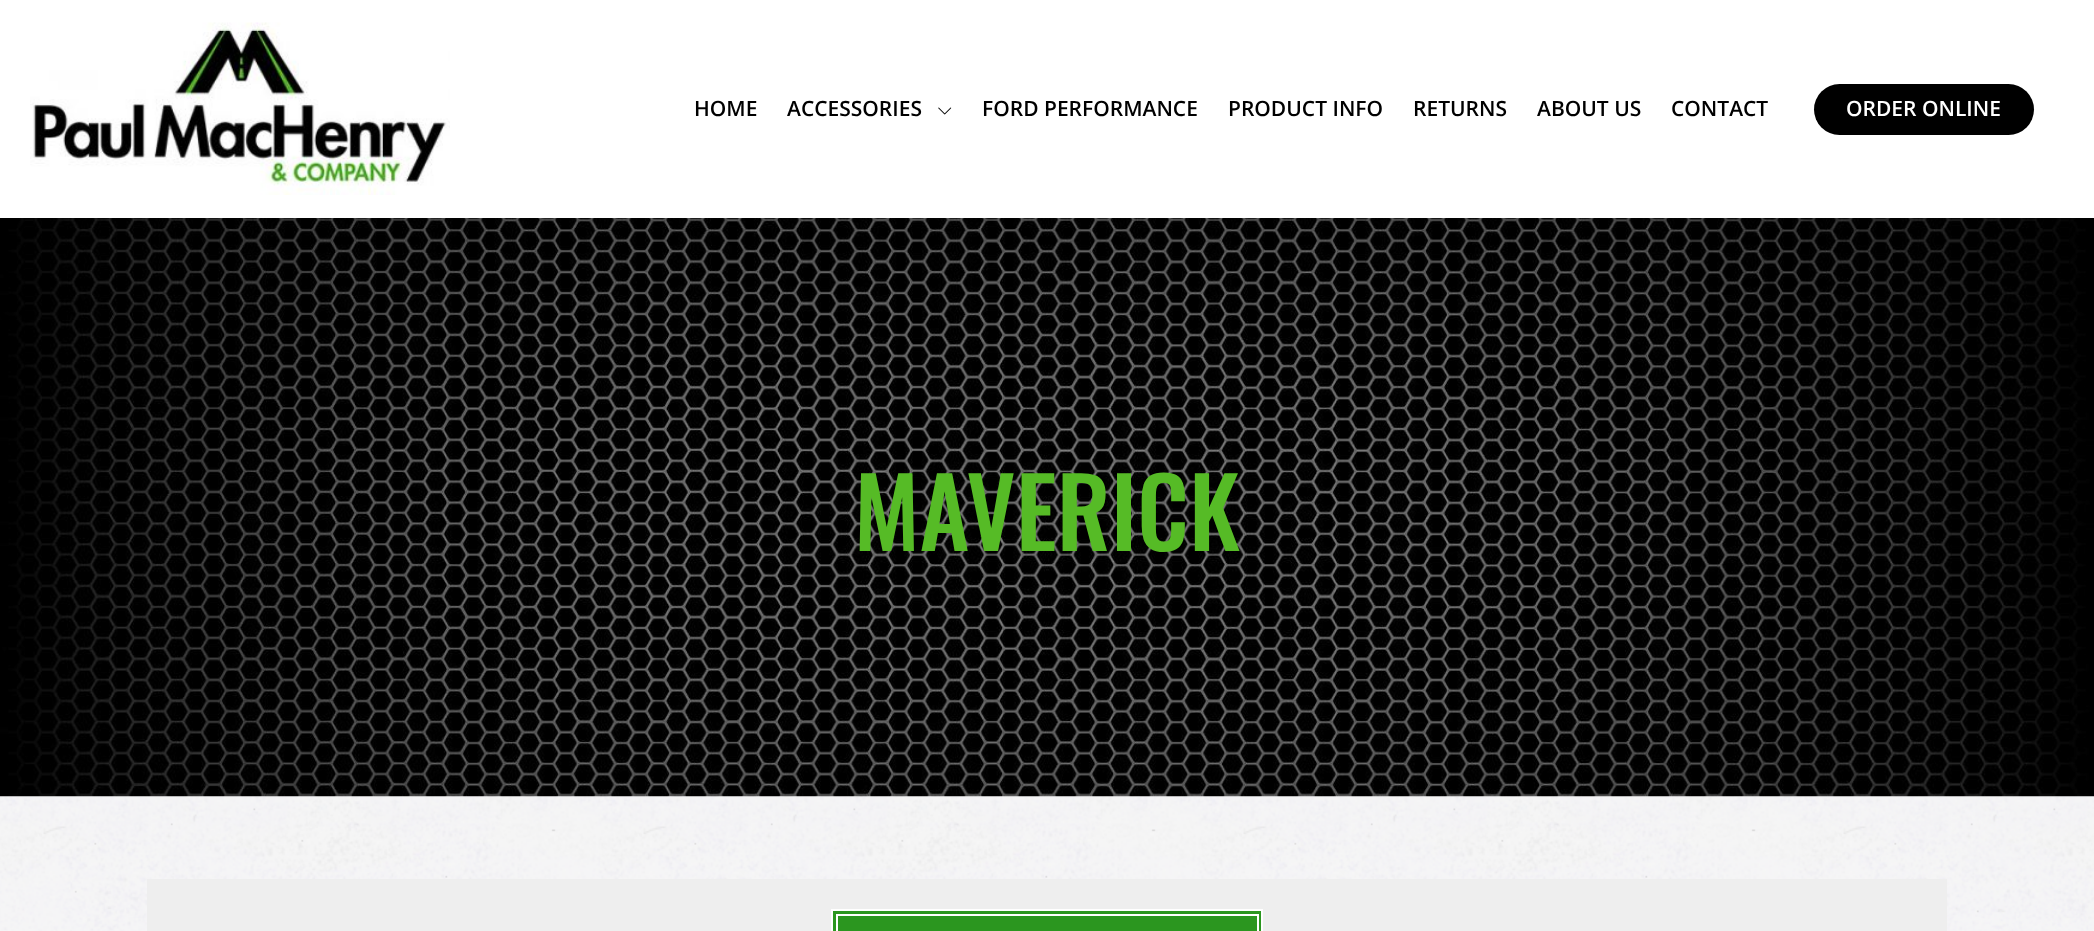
<svg xmlns="http://www.w3.org/2000/svg" width="2094" height="931" viewBox="0 0 2094 931">
  <rect width="100%" height="100%" fill="#fff"/>
  <image x="30" y="22" width="420" height="173" href="img/1.png"/>
  <image x="938" y="107" width="14" height="8" href="img/2.png"/>
  <rect x="1814" y="84" width="220" height="51" rx="25.5" fill="#000"/>
  <image x="0" y="218" width="2094" height="579" href="img/3.png"/>
  <image x="0" y="796" width="2094" height="135" href="img/4.png"/>
  <path d="M147 879h1800v52H147z" fill="#eee"/>
  <path d="M832 910h430v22H832z" fill="#2b961f" stroke="#fff" stroke-width="2"/>
  <path d="M837 915h421v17H837z" fill="none" stroke="#fff" stroke-width="2"/>
  <g font-family="Open Sans" font-size="21" font-weight="600" fill="#000">
    <text x="694" y="116">HOME</text>
    <text x="787" y="116">ACCESSORIES</text>
    <text x="982" y="116">FORD PERFORMANCE</text>
    <text x="1228" y="116">PRODUCT INFO</text>
    <text x="1413" y="116">RETURNS</text>
    <text x="1537" y="116">ABOUT US</text>
    <text x="1671" y="116">CONTACT</text>
  </g>
  <text x="1846" y="116" font-family="Open Sans" font-size="21" font-weight="600" fill="#fff">ORDER ONLINE</text>
  <text x="854" y="551" font-family="Oswald" font-size="96" font-weight="500" fill="#56bb26">MAVERICK</text>
</svg>
